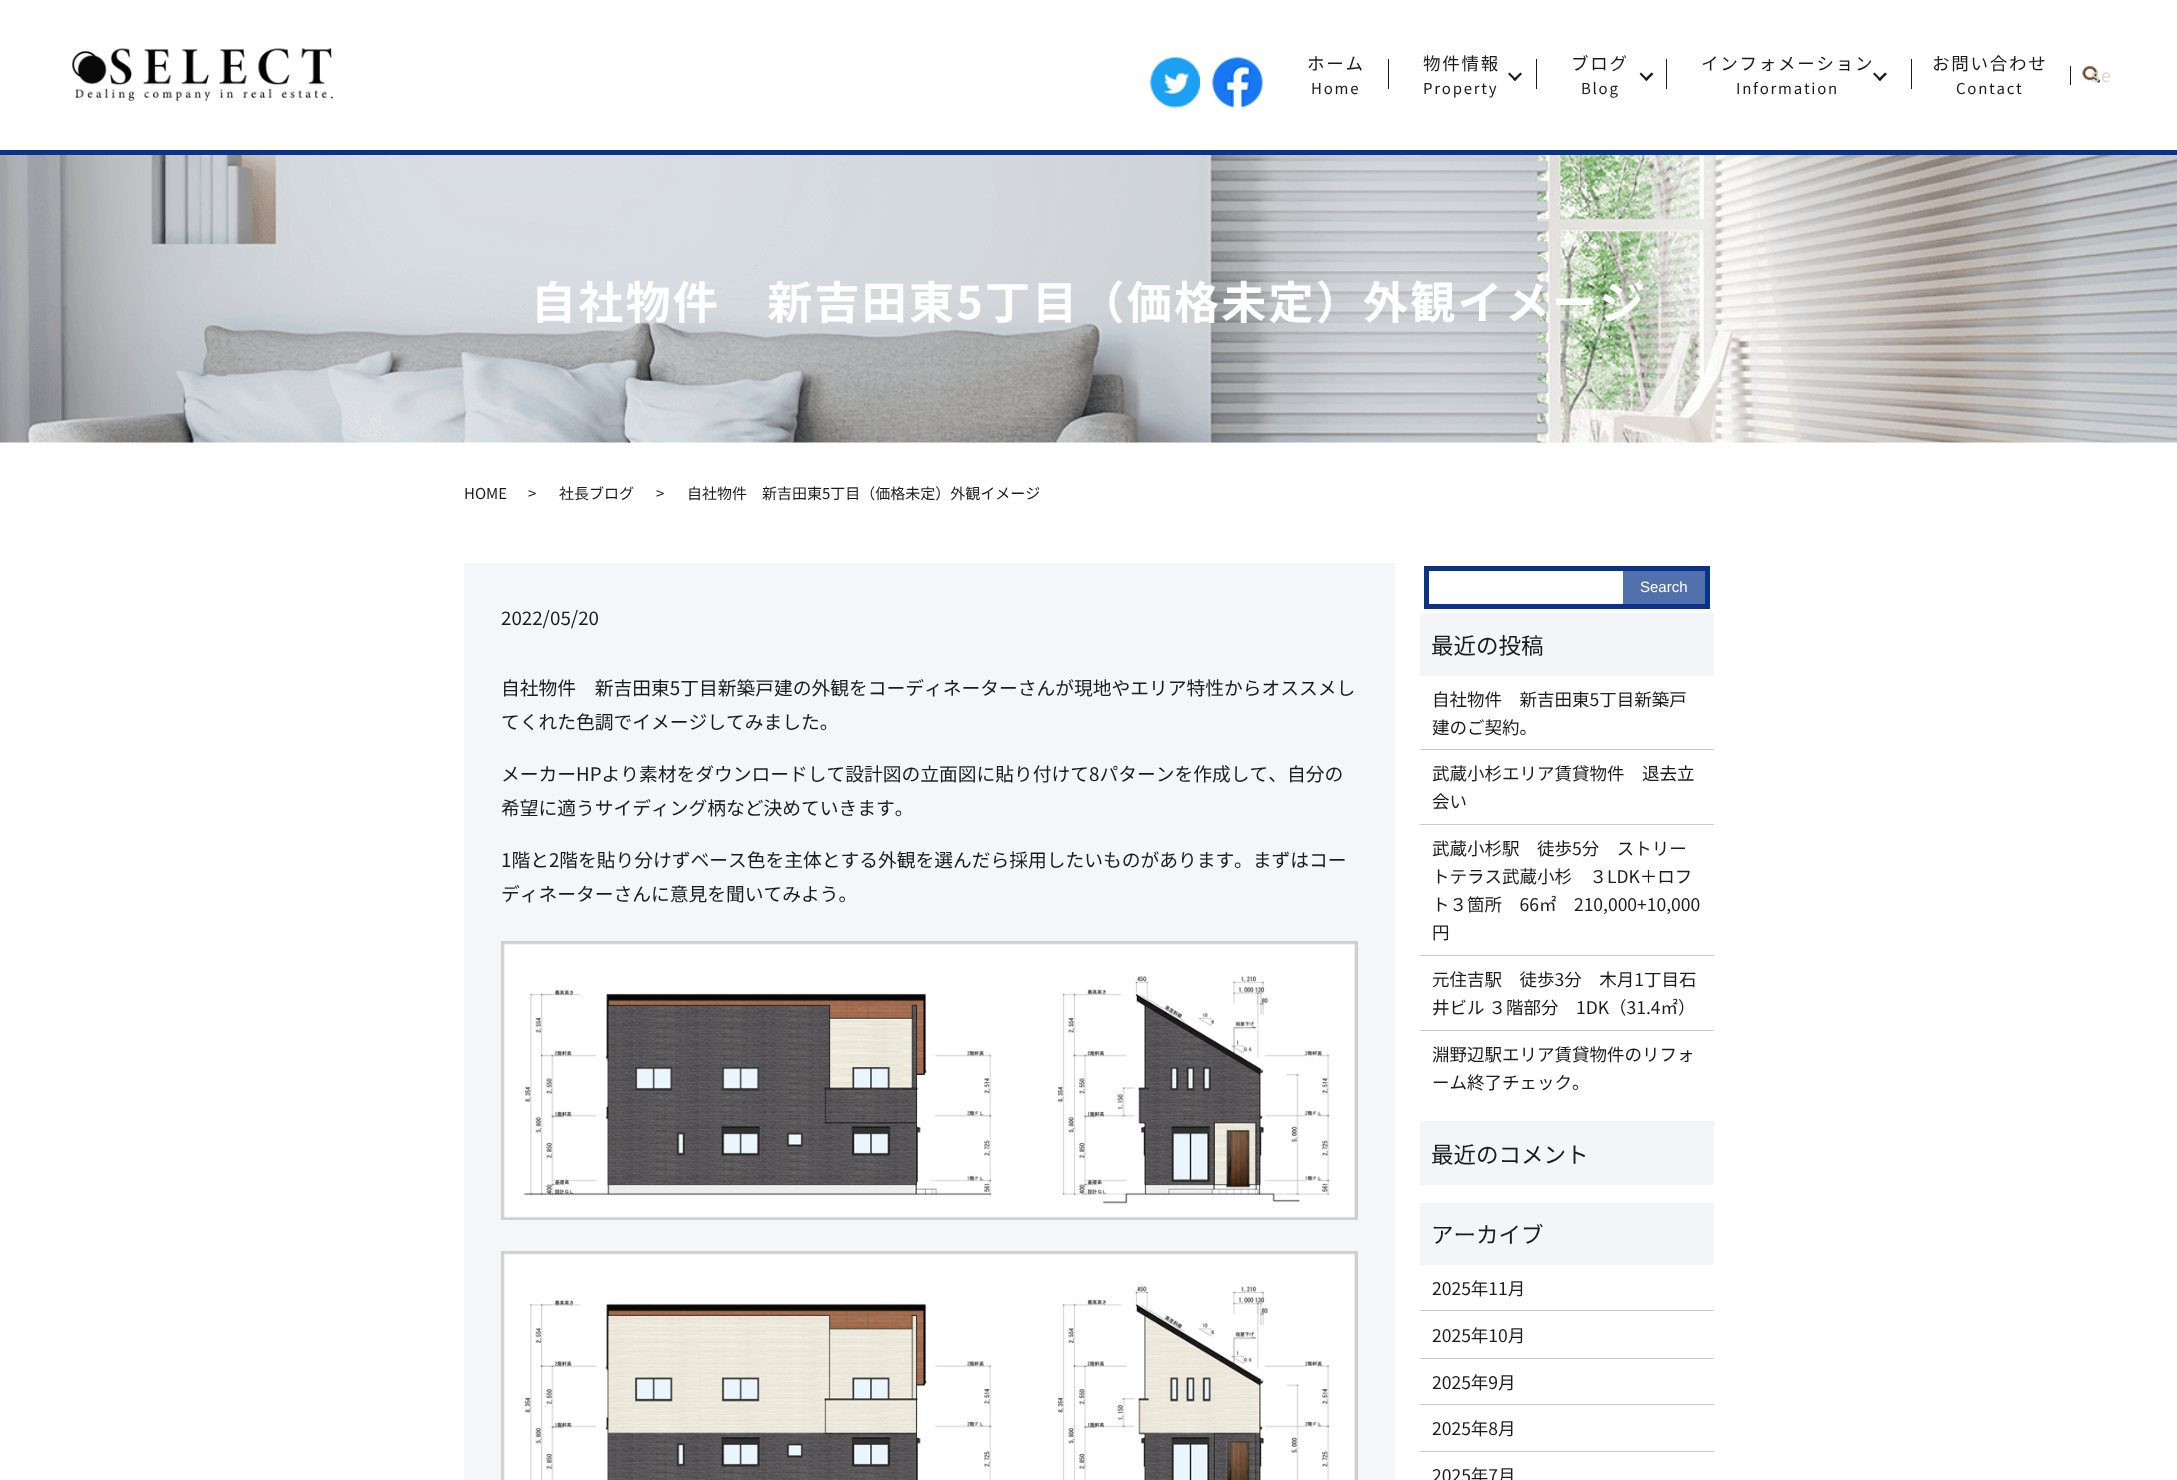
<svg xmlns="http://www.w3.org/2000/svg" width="2177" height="1480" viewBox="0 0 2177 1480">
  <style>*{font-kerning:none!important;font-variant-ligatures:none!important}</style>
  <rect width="100%" height="100%" fill="#fff"/>
  <path d="M0 150h2177v5H0z" fill="#083388"/>
  <image x="72" y="48" width="261" height="53" href="img/1.png"/>
  <image x="1150" y="57" width="50" height="51" href="img/2.png"/>
  <image x="1212" y="57" width="51" height="51" href="img/3.png"/>
  <path d="M1388 59h1v30H1388z" fill="#1b1b1b"/>
  <path d="M1522 74L1515 81L1513 79.5L1520.5 72.5Z" fill="#1b1b1b"/>
  <path d="M1516.5 79.5L1515 81L1508 74L1509.5 72.5Z" fill="#1b1b1b"/>
  <path d="M1536 59h1v30H1536z" fill="#1b1b1b"/>
  <path d="M1653.5 74L1646.5 81L1644.5 79.5L1651.5 72.5Z" fill="#1b1b1b"/>
  <path d="M1648 79.5L1646.5 81L1639.5 74L1641 72.5Z" fill="#1b1b1b"/>
  <path d="M1666 59h1v30H1666z" fill="#1b1b1b"/>
  <path d="M1887 74L1880 81L1878 79.5L1885 72.5Z" fill="#1b1b1b"/>
  <path d="M1881.5 79.5L1880 81L1873 74L1874.5 72.5Z" fill="#1b1b1b"/>
  <path d="M1911 59h1v30H1911z" fill="#1b1b1b"/>
  <image x="2082" y="66" width="18" height="17" href="img/4.png"/>
  <path d="M2070 66h1v19H2070z" fill="#1b1b1b"/>
  <image x="0" y="155" width="2177" height="288" href="img/5.png"/>
  <path d="M464 563h931v917H464z" fill="#f4f6fa"/>
  <path d="M502.5 942.5h854v276H502.5z" fill="none" stroke="#cfcfcf" stroke-width="3"/>
  <image x="503" y="943" width="852" height="275" href="img/6.png"/>
  <path d="M502.5 1252.5h854v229H502.5z" fill="none" stroke="#cfcfcf" stroke-width="3"/>
  <image x="503" y="1253" width="852" height="227" href="img/7.png"/>
  <path d="M1426.5 568.5h281v38H1426.5z" fill="none" stroke="#083388" stroke-width="5"/>
  <path d="M1623 571h82v33H1623z" fill="#5270ac"/>
  <path d="M1420 613h294v63H1420z" fill="#f3f5f9"/>
  <path d="M1420 749h294v1H1420z" fill="#ccc"/>
  <path d="M1420 824h294v1H1420z" fill="#ccc"/>
  <path d="M1420 955h294v1H1420z" fill="#ccc"/>
  <path d="M1420 1030h294v1H1420z" fill="#ccc"/>
  <path d="M1420 1121h294v64H1420z" fill="#f3f5f9"/>
  <path d="M1420 1203h294v62H1420z" fill="#f3f5f9"/>
  <path d="M1420 1310h294v1H1420z" fill="#ccc"/>
  <path d="M1420 1358h294v1H1420z" fill="#ccc"/>
  <path d="M1420 1404h294v1H1420z" fill="#ccc"/>
  <path d="M1420 1451h294v1H1420z" fill="#ccc"/>
  <text x="1307" y="70" font-family="Noto Sans JP" font-size="17.5" letter-spacing="1.75" fill="#1b1b1b">ホーム</text>
  <text x="1311" y="94" font-family="Noto Sans JP" font-size="15" letter-spacing="1.75" fill="#1b1b1b">Home</text>
  <text x="1423" y="70" font-family="Noto Sans JP" font-size="17.5" letter-spacing="1.75" fill="#1b1b1b">物件情報</text>
  <text x="1423" y="94" font-family="Noto Sans JP" font-size="15" letter-spacing="1.75" fill="#1b1b1b">Property</text>
  <text x="1571" y="70" font-family="Noto Sans JP" font-size="17.5" letter-spacing="1.75" fill="#1b1b1b">ブログ</text>
  <text x="1581" y="94" font-family="Noto Sans JP" font-size="15" letter-spacing="1.75" fill="#1b1b1b">Blog</text>
  <text x="1701" y="70" font-family="Noto Sans JP" font-size="17.5" letter-spacing="1.75" fill="#1b1b1b">インフォメーション</text>
  <text x="1736" y="94" font-family="Noto Sans JP" font-size="15" letter-spacing="1.75" fill="#1b1b1b">Information</text>
  <text x="1932" y="70" font-family="Noto Sans JP" font-size="17.5" letter-spacing="1.75" fill="#1b1b1b">お問い合わせ</text>
  <text x="1956" y="94" font-family="Noto Sans JP" font-size="15" letter-spacing="1.75" fill="#1b1b1b">Contact</text>
  <text x="2091" y="82" font-family="Noto Sans JP" font-size="17.5" letter-spacing="1.75" fill="#dfd7d0">se</text>
  <text x="531" y="319" font-family="Noto Sans JP" font-size="45" font-weight="bold" letter-spacing="2.25" fill="#fff">自社物件　新吉田東5丁目（価格未定）外観イメージ</text>
  <g font-family="Noto Sans JP" font-size="15" fill="#1b1b1b">
    <text x="464" y="499">HOME</text>
    <text x="528" y="499">&gt;</text>
    <text x="559" y="499">社長ブログ</text>
    <text x="656" y="499">&gt;</text>
    <text x="687" y="499">自社物件　新吉田東5丁目（価格未定）外観イメージ</text>
  </g>
  <g font-family="Noto Sans JP" font-size="18.75" fill="#1b1b1b">
    <text x="501" y="625">2022/05/20</text>
    <text x="501" y="695">自社物件　新吉田東5丁目新築戸建の外観をコーディネーターさんが現地やエリア特性からオススメし</text>
    <text x="501" y="729">てくれた色調でイメージしてみました。</text>
    <text x="501" y="781">メーカーHPより素材をダウンロードして設計図の立面図に貼り付けて8パターンを作成して、自分の</text>
    <text x="501" y="815">希望に適うサイディング柄など決めていきます。</text>
    <text x="501" y="867">1階と2階を貼り分けずベース色を主体とする外観を選んだら採用したいものがあります</text>
    <text x="1234" y="867">。まずはコー</text>
    <text x="501" y="901">ディネーターさんに意見を聞いてみよう。</text>
  </g>
  <text x="1640" y="592" font-family="Liberation Sans" font-size="15" fill="#fff">Search</text>
  <text x="1431" y="654" font-family="Noto Sans JP" font-size="22.5" fill="#1b1b1b">最近の投稿</text>
  <g font-family="Noto Sans JP" font-size="17.5" fill="#1b1b1b">
    <text x="1432" y="706">自社物件　新吉田東5丁目新築戸</text>
    <text x="1432" y="734">建のご契約。</text>
    <text x="1432" y="780">武蔵小杉エリア賃貸物件　退去立</text>
    <text x="1432" y="808">会い</text>
    <text x="1432" y="855">武蔵小杉駅　徒歩5分　ストリー</text>
    <text x="1432" y="883">トテラス武蔵小杉　３LDK＋ロフ</text>
    <text x="1432" y="911">ト３箇所　66㎡　210,000+10,000</text>
    <text x="1432" y="939">円</text>
    <text x="1432" y="986">元住吉駅　徒歩3分　木月1丁目石</text>
    <text x="1432" y="1014">井ビル ３階部分　1DK（31.4㎡）</text>
    <text x="1432" y="1061">淵野辺駅エリア賃貸物件のリフォ</text>
    <text x="1432" y="1089">ーム終了チェック。</text>
  </g>
  <g font-family="Noto Sans JP" font-size="22.5" fill="#1b1b1b">
    <text x="1431" y="1163">最近のコメント</text>
    <text x="1431" y="1243">アーカイブ</text>
  </g>
  <g font-family="Noto Sans JP" font-size="17.5" fill="#1b1b1b">
    <text x="1432" y="1295">2025年11月</text>
    <text x="1432" y="1342">2025年10月</text>
    <text x="1432" y="1389">2025年9月</text>
    <text x="1432" y="1435">2025年8月</text>
    <text x="1432" y="1482">2025年7月</text>
  </g>
</svg>
